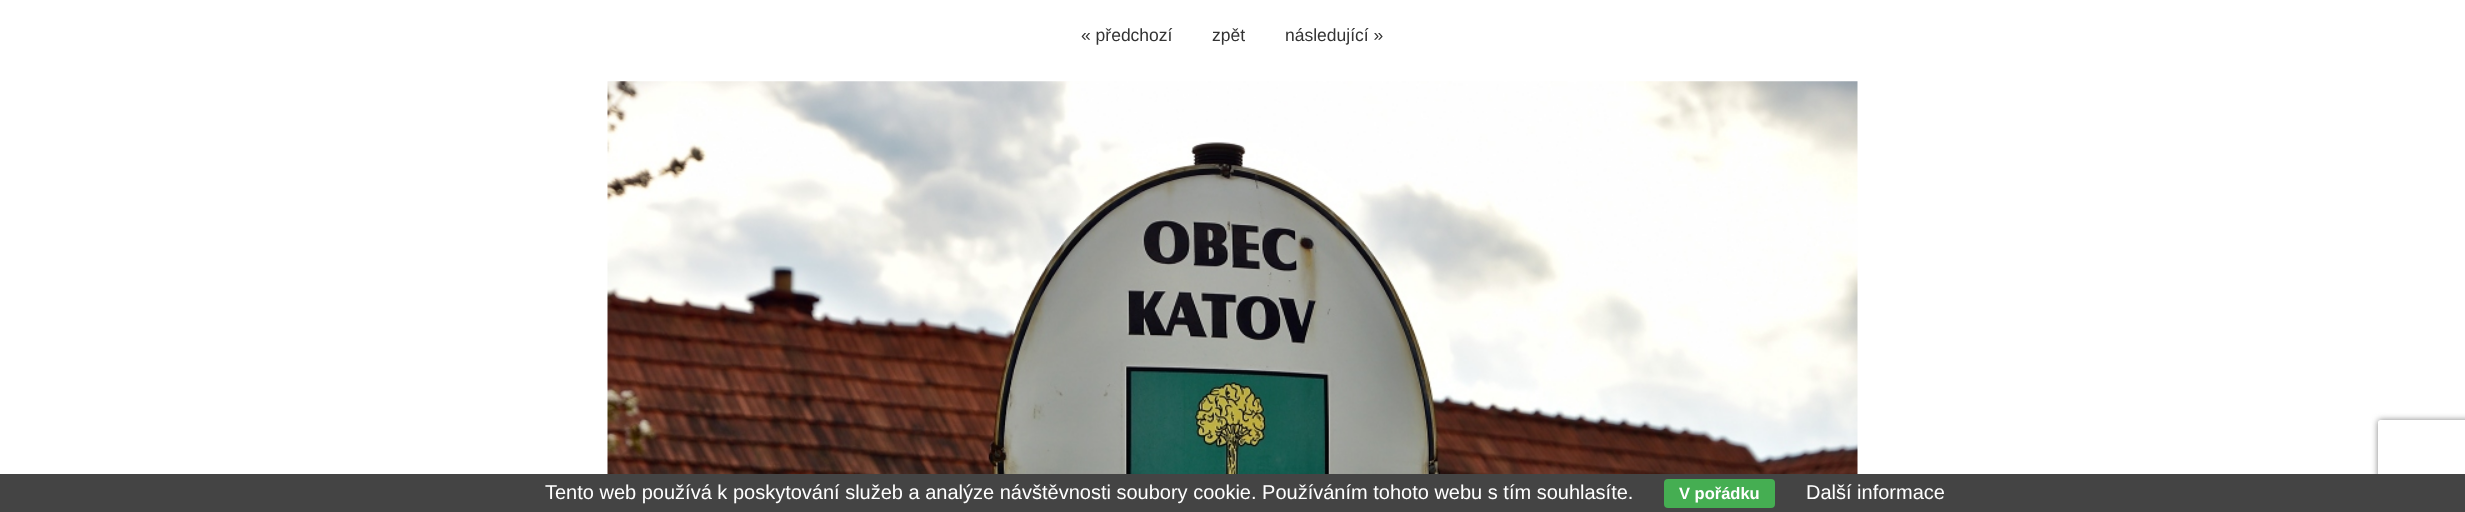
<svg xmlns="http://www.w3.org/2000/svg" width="2465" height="512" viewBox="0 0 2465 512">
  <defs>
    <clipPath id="clip1"><path d="M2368 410H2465V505H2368ZM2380.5 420H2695.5C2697 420 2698 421 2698 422.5V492.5C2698 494 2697 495 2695.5 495H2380.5C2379 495 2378 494 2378 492.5V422.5C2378 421 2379 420 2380.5 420Z" clip-rule="evenodd"/></clipPath>
  </defs>
  <rect width="100%" height="100%" fill="#fff"/>
  <image x="607" y="81" width="1251" height="393" href="img/1.png"/>
  <g clip-path="url(#clip1)">
    <rect x="2378" y="420" width="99" height="75" rx="2.5" fill="#808080" filter="blur(3px)"/>
  </g>
  <path d="M0 474h2465v38H0z" fill="#444"/>
  <rect x="1664" y="479" width="111" height="29" rx="4" fill="#45ae52"/>
  <g font-family="Liberation Sans" font-size="17.5" fill="#333">
    <text x="1081" y="41">« předchozí</text>
    <text x="1212" y="41">zpět</text>
    <text x="1285" y="41">následující »</text>
  </g>
  <text x="545" y="499" font-family="Liberation Sans" font-size="20" fill="#fff">Tento web používá k poskytování služeb a analýze návštěvnosti soubory cookie. Používáním tohoto webu s tím souhlasíte.</text>
  <text x="1679" y="499" font-family="Liberation Sans" font-size="16.5" font-weight="bold" fill="#fff">V pořádku</text>
  <text x="1806" y="499" font-family="Liberation Sans" font-size="20" fill="#fff">Další informace</text>
</svg>
